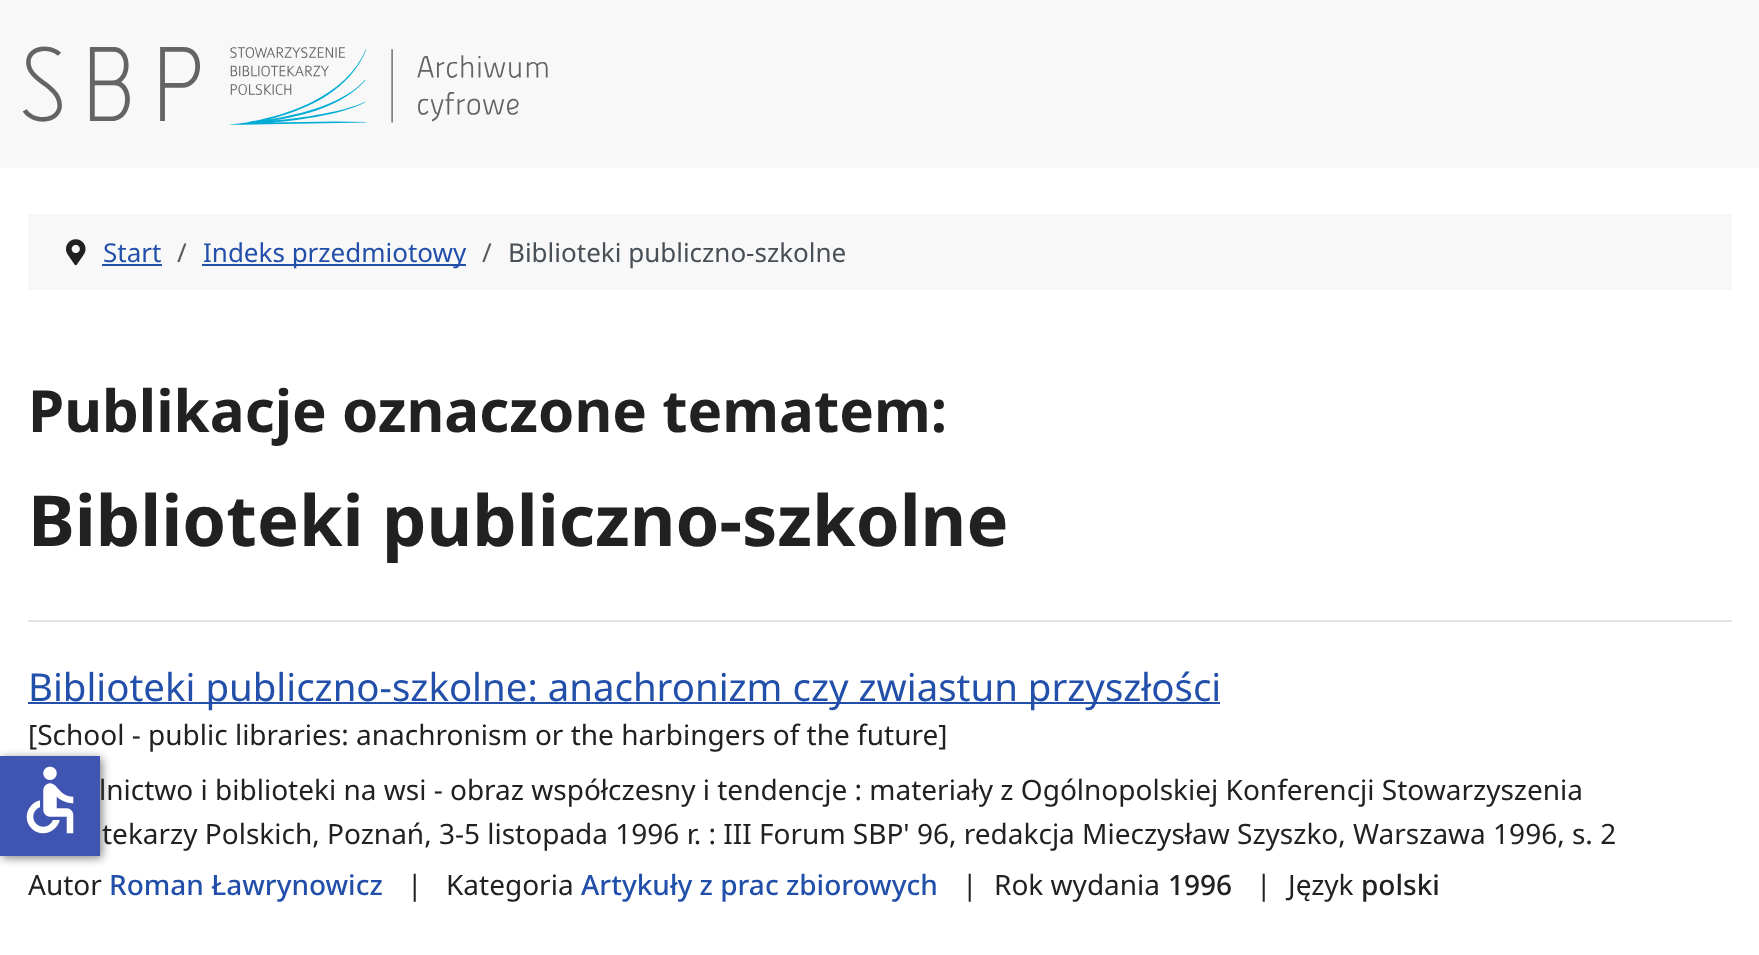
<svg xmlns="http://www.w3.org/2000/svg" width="1759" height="955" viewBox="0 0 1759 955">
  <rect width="100%" height="100%" fill="#fff"/>
  <path d="M0 0h1759v168H0z" fill="#f8f8f8"/>
  <image x="22" y="46" width="526" height="79" href="img/1.png"/>
  <path d="M28 214h1704v76H28z" fill="#f8f8f8"/>
  <image x="66" y="239" width="20" height="27" href="img/2.png"/>
  <path d="M102 264h60v2H102z" fill="#224faa"/>
  <path d="M202 264h264v2H202z" fill="#224faa"/>
  <path d="M28 620h1704v2H28z" fill="#dfe3e7"/>
  <path d="M28 702h1192v2H28z" fill="#224faa"/>
  <path d="M2 758h100v100H2z" fill="#00000080" filter="blur(5px)"/>
  <path d="M0 756h100v100H0z" fill="#4054b2"/>
  <image x="26" y="766" width="48" height="68" href="img/3.png"/>
  <text x="103" y="262" font-family="Noto Sans" font-size="26" fill="#224faa">Start</text>
  <text x="177" y="262" font-family="Noto Sans" font-size="26" fill="#585b5e">/</text>
  <text x="203" y="262" font-family="Noto Sans" font-size="26" fill="#224faa">Indeks przedmiotowy</text>
  <text x="482" y="262" font-family="Noto Sans" font-size="26" fill="#585b5e">/</text>
  <text x="508" y="262" font-family="Noto Sans" font-size="26" fill="#484f56">Biblioteki publiczno-szkolne</text>
  <text x="28" y="432" font-family="Noto Sans" font-size="58.25" font-weight="bold" fill="#212121">Publikacje oznaczone tematem:</text>
  <text x="28" y="546" font-family="Noto Sans" font-size="70.4" font-weight="bold" fill="#212121">Biblioteki publiczno-szkolne</text>
  <text x="28" y="701" font-family="Noto Sans" font-size="38.4" fill="#224faa">Biblioteki publiczno-szkolne: anachronizm czy zwiastun przyszłości</text>
  <g font-family="Noto Sans" font-size="28" fill="#212121">
    <text x="28" y="745">[School - public libraries: anachronism or the harbingers of the future]</text>
    <text x="99" y="800">lnictwo i biblioteki na wsi - obraz współczesny i tendencje : materiały z Ogólnopolskiej Konferencji Stowarzyszenia</text>
    <text x="102" y="844">tekarzy Polskich, Poznań, 3-5 listopada 1996 r. : III Forum SBP' 96, redakcja Mieczysław Szyszko, Warszawa 1996, s. 2</text>
    <text x="28" y="895">Autor</text>
  </g>
  <text x="109" y="895" font-family="Noto Sans" font-size="28" font-weight="500" fill="#224faa">Roman Ławrynowicz</text>
  <g font-family="Noto Sans" font-size="28" fill="#212121">
    <text x="407" y="895">|</text>
    <text x="446" y="895">Kategoria</text>
  </g>
  <text x="581" y="895" font-family="Noto Sans" font-size="28" font-weight="500" fill="#224faa">Artykuły z prac zbiorowych</text>
  <g font-family="Noto Sans" font-size="28" fill="#212121">
    <text x="962" y="895">|</text>
    <text x="994" y="895">Rok wydania</text>
  </g>
  <text x="1168" y="895" font-family="Noto Sans" font-size="28" font-weight="500" fill="#212121">1996</text>
  <g font-family="Noto Sans" font-size="28" fill="#212121">
    <text x="1256" y="895">|</text>
    <text x="1288" y="895">Język</text>
  </g>
  <text x="1361" y="895" font-family="Noto Sans" font-size="28" font-weight="500" fill="#212121">polski</text>
</svg>
